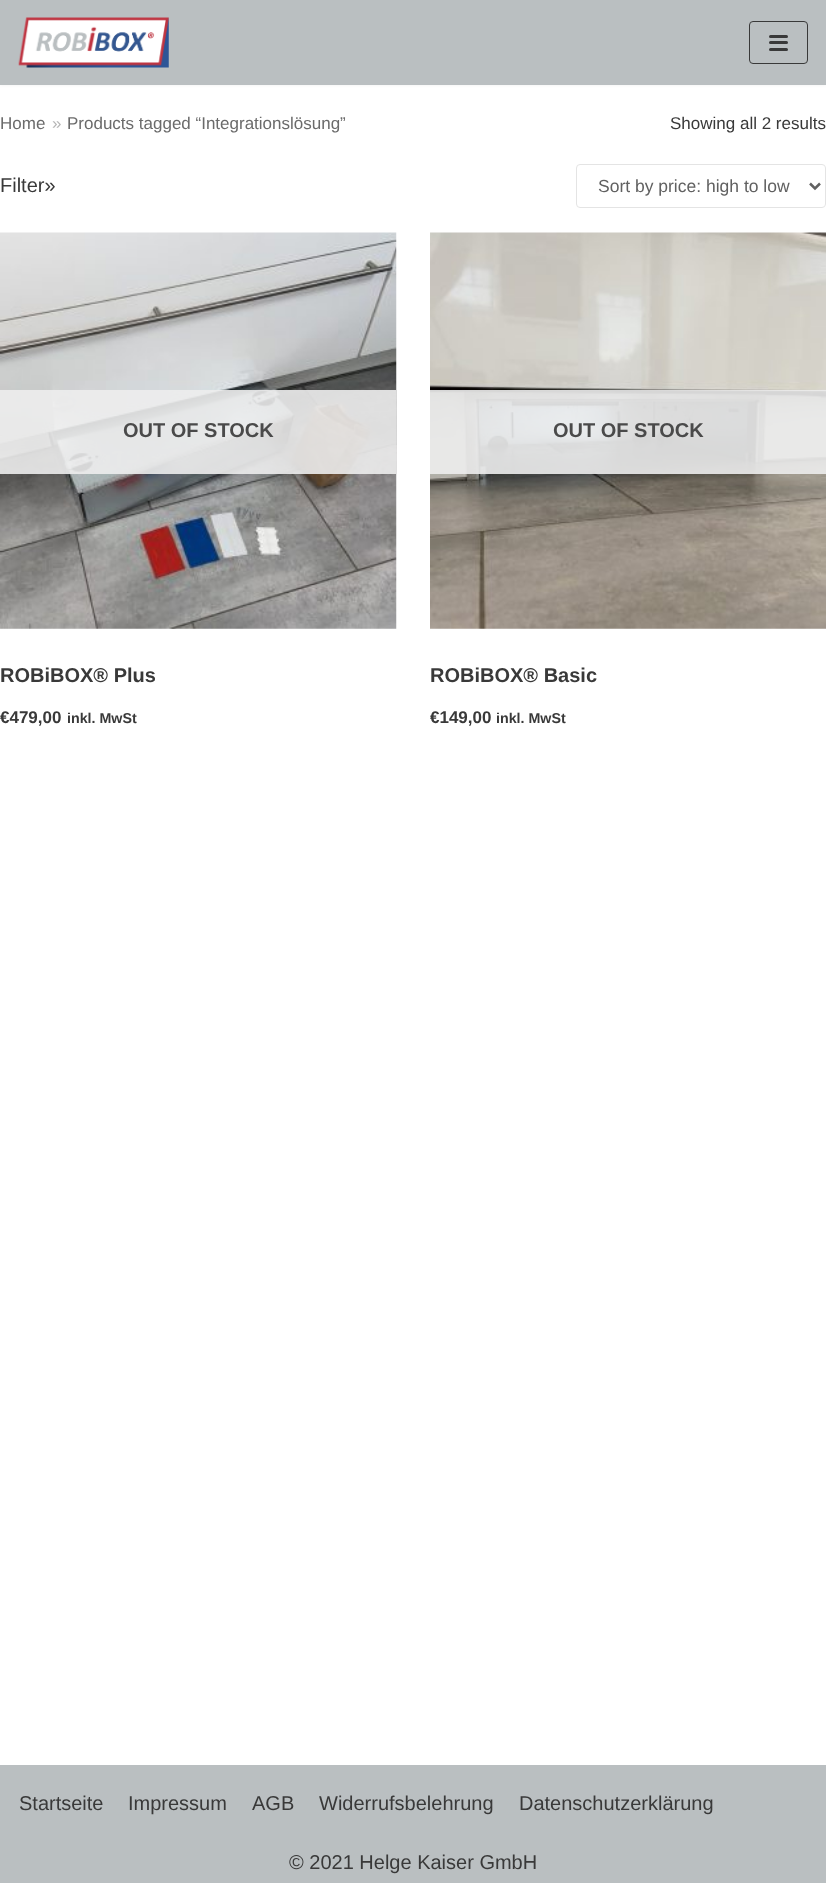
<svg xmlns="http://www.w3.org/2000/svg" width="826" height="1883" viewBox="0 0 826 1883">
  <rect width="100%" height="100%" fill="#fff"/>
  <path d="M0 -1h826v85H0z" fill="#0000001a" filter="blur(2px)"/>
  <path d="M0 0h826v85H0z" fill="#babfc1"/>
  <image x="18" y="17" width="151" height="51" href="img/1.png"/>
  <rect x="749.5" y="21.5" width="58" height="42" rx="3.5" fill="none" stroke="#393939"/>
  <rect x="769" y="35" width="19" height="3" rx="1.5" fill="#393939"/>
  <rect x="769" y="41" width="19" height="3" rx="1.5" fill="#393939"/>
  <rect x="769" y="48" width="19" height="3" rx="1.5" fill="#393939"/>
  <rect x="576.5" y="164.5" width="249" height="43" rx="3.5" fill="none" stroke="#e4e4e4"/>
  <path d="M810 183.5L815 188.5L820 183.5" fill="none" stroke="#616161" stroke-width="2.5"/>
  <image x="0" y="232" width="397" height="397" href="img/2.png"/>
  <path d="M0 390h396v84H0z" fill="#ededede6"/>
  <image x="430" y="232" width="396" height="397" href="img/3.png"/>
  <path d="M430 390h396v84H430z" fill="#ededede6"/>
  <path d="M0 1765h826v118H0z" fill="#babfc1"/>
  <text x="0" y="129" font-family="Liberation Sans" font-size="17" fill="#6b6b6b">Home</text>
  <text x="52" y="129" font-family="Liberation Sans" font-size="17" fill="#b5b5b5">»</text>
  <text x="67" y="129" font-family="Liberation Sans" font-size="17" fill="#6b6b6b">Products tagged “Integrationslösung”</text>
  <text x="670" y="129" font-family="Liberation Sans" font-size="17" fill="#393939">Showing all 2 results</text>
  <text x="0" y="192" font-family="Liberation Sans" font-size="20" fill="#393939">Filter»</text>
  <text x="598" y="192" font-family="Liberation Sans" font-size="17.5" fill="#616161">Sort by price: high to low</text>
  <text x="123" y="437" font-family="Liberation Sans" font-size="20" font-weight="bold" fill="#4a4a4a">OUT OF STOCK</text>
  <text x="0" y="682" font-family="Liberation Sans" font-size="20" font-weight="bold" fill="#393939">ROBiBOX® Plus</text>
  <text x="0" y="723" font-family="Liberation Sans" font-size="17" font-weight="bold" fill="#393939">€479,00</text>
  <text x="67" y="723" font-family="Liberation Sans" font-size="14.25" font-weight="bold" fill="#393939">inkl. MwSt</text>
  <text x="553" y="437" font-family="Liberation Sans" font-size="20" font-weight="bold" fill="#4a4a4a">OUT OF STOCK</text>
  <text x="430" y="682" font-family="Liberation Sans" font-size="20" font-weight="bold" fill="#393939">ROBiBOX® Basic</text>
  <text x="430" y="723" font-family="Liberation Sans" font-size="17" font-weight="bold" fill="#393939">€149,00</text>
  <text x="496" y="723" font-family="Liberation Sans" font-size="14.25" font-weight="bold" fill="#393939">inkl. MwSt</text>
  <g font-family="Liberation Sans" font-size="20" fill="#393939">
    <text x="19" y="1810">Startseite</text>
    <text x="128" y="1810">Impressum</text>
    <text x="252" y="1810">AGB</text>
    <text x="319" y="1810">Widerrufsbelehrung</text>
    <text x="519" y="1810">Datenschutzerklärung</text>
    <text x="289" y="1869">© 2021 Helge Kaiser GmbH</text>
  </g>
</svg>
